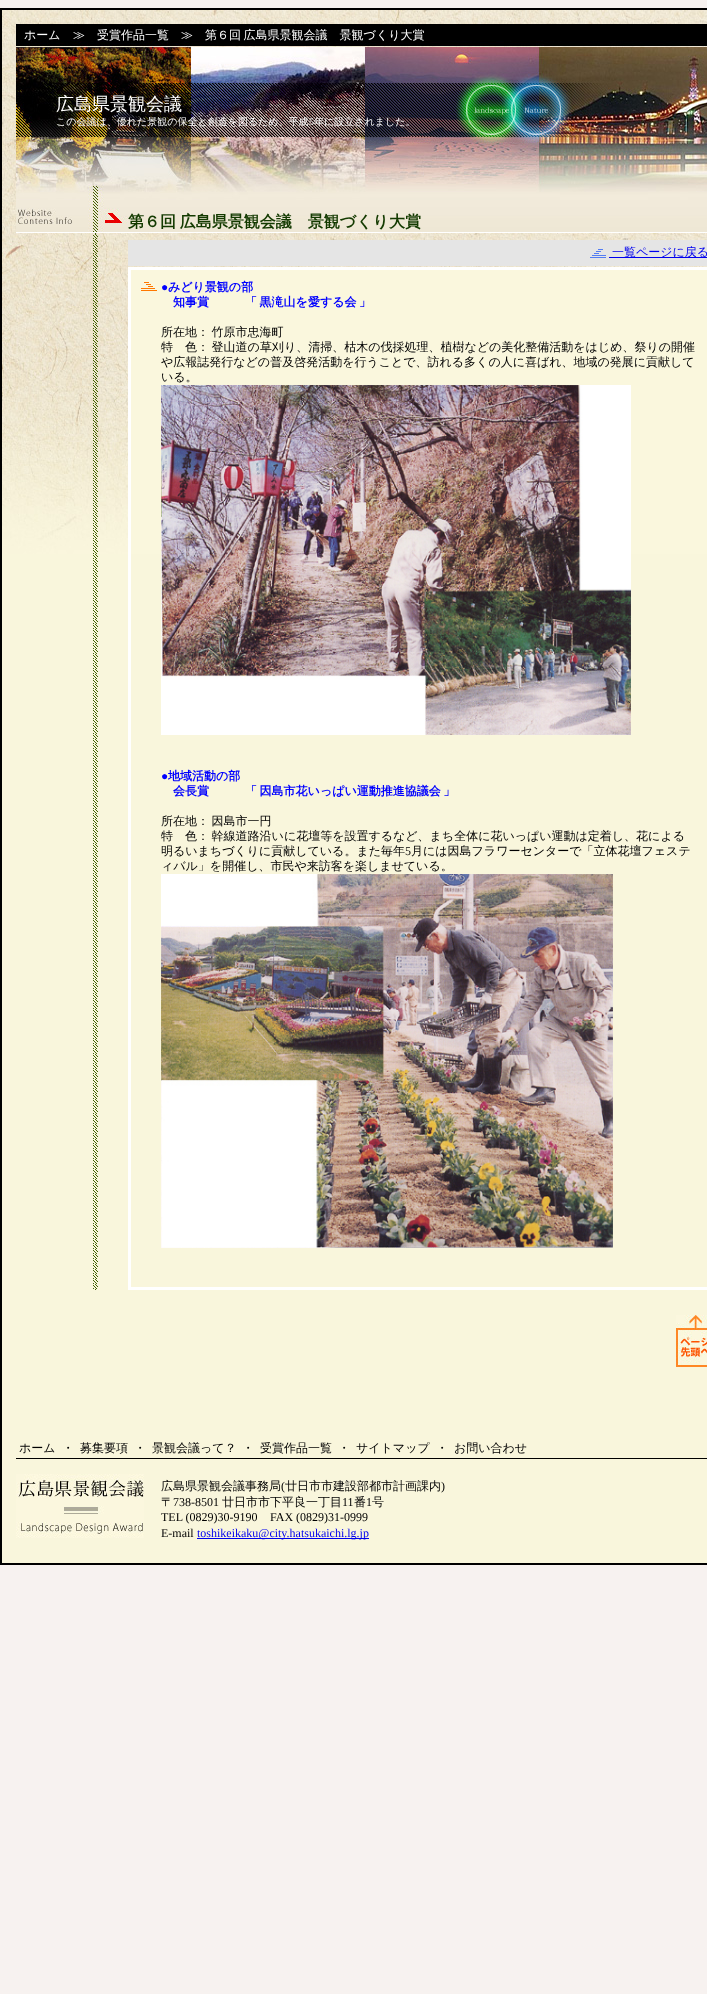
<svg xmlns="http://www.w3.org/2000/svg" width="707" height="1994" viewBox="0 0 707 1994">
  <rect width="100%" height="100%" fill="#f7f2f0"/>
  <path d="M2 554h705v1009H2z" fill="#f9f6dc"/>
  <image x="2" y="10" width="705" height="544" href="img/1.png"/>
  <path d="M1 9h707v1555H1z" fill="none" stroke="#000" stroke-width="2"/>
  <image x="16" y="24" width="691" height="210" href="img/2.png"/>
  <image x="93" y="234" width="5" height="1056" href="img/3.png"/>
  <path d="M128 240h579v26H128z" fill="#e5e5e5"/>
  <image x="590" y="249" width="16" height="9" href="img/4.png"/>
  <path d="M609 257h98v1H609z" fill="#00e"/>
  <path d="M131 270h576v284H131z" fill="#faf7dd"/>
  <image x="141" y="282" width="16" height="9" href="img/5.png"/>
  <path d="M129.5 268.5h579v1020H129.5z" fill="none" stroke="#fff" stroke-width="3"/>
  <image x="161" y="385" width="470" height="350" href="img/6.png"/>
  <image x="161" y="874" width="452" height="374" href="img/7.png"/>
  <image x="676" y="1315" width="31" height="52" href="img/8.png"/>
  <path d="M16 1458h691v1H16z" fill="#000"/>
  <image x="16" y="1474" width="128" height="64" href="img/9.png"/>
  <path d="M197 1538h172v1H197z" fill="#00e"/>
  <g font-family="WenQuanYi Zen Hei" font-size="12" font-weight="500" fill="#fff">
    <text x="24" y="39">ホーム</text>
    <text x="73" y="39">≫</text>
    <text x="97" y="39">受賞作品一覧</text>
    <text x="181" y="39" word-spacing="-1">≫　第６回 広島県景観会議　景観づくり大賞</text>
  </g>
  <text x="56" y="110" font-family="WenQuanYi Zen Hei" font-size="18" font-weight="500" fill="#fff">広島県景観会議</text>
  <text x="56" y="125" font-family="WenQuanYi Zen Hei" font-size="10" font-weight="500" fill="#fff">この会議は、優れた景観の保全と創造を図るため、平成</text>
  <text x="309" y="125" font-family="Liberation Serif" font-size="10" fill="#fff">5</text>
  <text x="314" y="125" font-family="WenQuanYi Zen Hei" font-size="10" font-weight="500" fill="#fff">年に設立されました。</text>
  <text x="128" y="227" word-spacing="-1" font-family="WenQuanYi Zen Hei" font-size="16" font-weight="bold" fill="#133a00">第６回 広島県景観会議　景観づくり大賞</text>
  <text x="612" y="256" font-family="WenQuanYi Zen Hei" font-size="12" font-weight="500" fill="#00e">一覧ページに戻る</text>
  <text x="161" y="291" font-family="Liberation Serif" font-size="12" font-weight="bold" fill="#00f">●</text>
  <g font-family="WenQuanYi Zen Hei" font-size="12" font-weight="bold" fill="#00f">
    <text x="168" y="291">みどり景観の部</text>
    <text x="173" y="306" word-spacing="-1">知事賞　　　「 黒滝山を愛する会 」</text>
  </g>
  <g font-family="WenQuanYi Zen Hei" font-size="12" font-weight="500" fill="#000">
    <text x="161" y="336" word-spacing="-1">所在地： 竹原市忠海町</text>
    <text x="161" y="351" word-spacing="-1">特　色： 登山道の草刈り、清掃、枯木の伐採処理、植樹などの美化整備活動をはじめ、祭りの開催</text>
    <text x="161" y="366">や広報誌発行などの普及啓発活動を行うことで、訪れる多くの人に喜ばれ、地域の発展に貢献して</text>
    <text x="161" y="381">いる。</text>
  </g>
  <text x="161" y="780" font-family="Liberation Serif" font-size="12" font-weight="bold" fill="#00f">●</text>
  <g font-family="WenQuanYi Zen Hei" font-size="12" font-weight="bold" fill="#00f">
    <text x="168" y="780">地域活動の部</text>
    <text x="173" y="795" word-spacing="-1">会長賞　　　「 因島市花いっぱい運動推進協議会 」</text>
  </g>
  <g font-family="WenQuanYi Zen Hei" font-size="12" font-weight="500" fill="#000">
    <text x="161" y="825" word-spacing="-1">所在地： 因島市一円</text>
    <text x="161" y="840" word-spacing="-1">特　色： 幹線道路沿いに花壇等を設置するなど、まち全体に花いっぱい運動は定着し、花による</text>
    <text x="161" y="855">明るいまちづくりに貢献している。また毎年</text>
  </g>
  <text x="405" y="855" font-family="Liberation Serif" font-size="12" fill="#000">5</text>
  <g font-family="WenQuanYi Zen Hei" font-size="12" font-weight="500" fill="#000">
    <text x="411" y="855">月には因島フラワーセンターで「立体花壇フェステ</text>
    <text x="161" y="870">ィバル」を開催し、市民や来訪客を楽しませている。</text>
    <text x="19" y="1452">ホーム</text>
    <text x="62" y="1452">・</text>
    <text x="80" y="1452">募集要項</text>
    <text x="134" y="1452">・</text>
    <text x="152" y="1452">景観会議って？</text>
    <text x="242" y="1452">・</text>
    <text x="260" y="1452">受賞作品一覧</text>
    <text x="338" y="1452">・</text>
    <text x="356" y="1452">サイトマップ</text>
    <text x="436" y="1452">・</text>
    <text x="454" y="1452">お問い合わせ</text>
    <text x="161" y="1490">広島県景観会議事務局</text>
  </g>
  <text x="281" y="1490" font-family="Liberation Serif" font-size="12" fill="#000">(</text>
  <text x="285" y="1490" font-family="WenQuanYi Zen Hei" font-size="12" font-weight="500" fill="#000">廿日市市建設部都市計画課内</text>
  <text x="441" y="1490" font-family="Liberation Serif" font-size="12" fill="#000">)</text>
  <text x="161" y="1506" font-family="WenQuanYi Zen Hei" font-size="12" font-weight="500" fill="#000">〒</text>
  <text x="173" y="1506" font-family="Liberation Serif" font-size="12" fill="#000">738-8501</text>
  <text x="222" y="1506" font-family="WenQuanYi Zen Hei" font-size="12" font-weight="500" fill="#000">廿日市市下平良一丁目</text>
  <text x="342" y="1506" font-family="Liberation Serif" font-size="12" fill="#000">11</text>
  <text x="354" y="1506" font-family="WenQuanYi Zen Hei" font-size="12" font-weight="500" fill="#000">番</text>
  <text x="366" y="1506" font-family="Liberation Serif" font-size="12" fill="#000">1</text>
  <text x="372" y="1506" font-family="WenQuanYi Zen Hei" font-size="12" font-weight="500" fill="#000">号</text>
  <g font-family="Liberation Serif" font-size="12" fill="#000">
    <text x="161" y="1521">TEL (0829)30-9190</text>
    <text x="270" y="1521">FAX (0829)31-0999</text>
    <text x="161" y="1537">E-mail</text>
  </g>
  <text x="197" y="1537" font-family="Liberation Serif" font-size="12" fill="#00e">toshikeikaku@city.hatsukaichi.lg.jp</text>
</svg>
